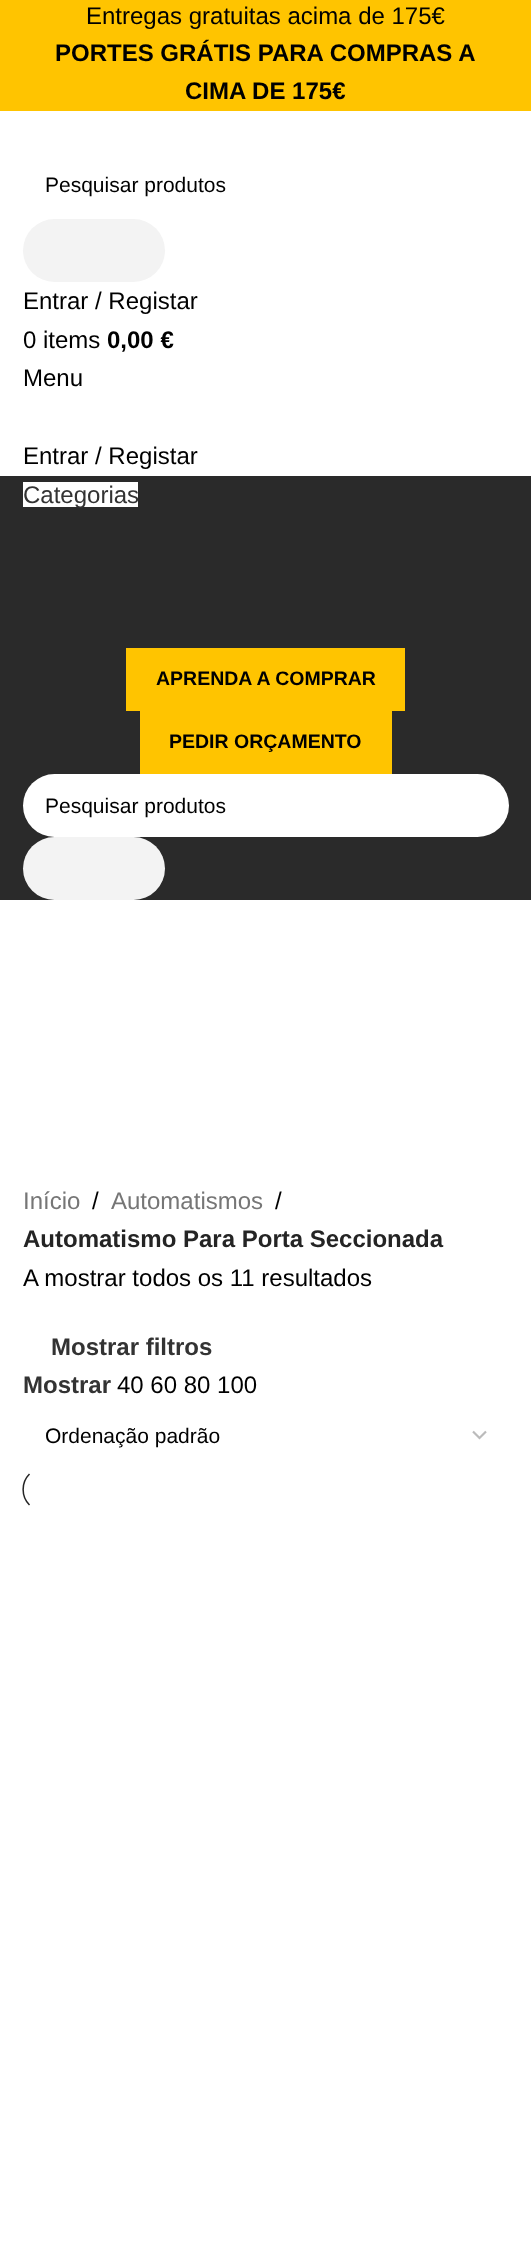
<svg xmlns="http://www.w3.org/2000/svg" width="531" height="2242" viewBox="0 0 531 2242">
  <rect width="100%" height="100%" fill="#fff"/>
  <path d="M0 0h531v111H0z" fill="#ffc400"/>
  <rect x="23" y="219" width="142" height="63" rx="31.5" fill="#f3f3f3"/>
  <path d="M0 476h531v424H0z" fill="#2a2a2a"/>
  <path d="M23 482h115v25H23z" fill="#fff"/>
  <path d="M126 648h279v63H126z" fill="#ffc400"/>
  <path d="M140 711h252v63H140z" fill="#ffc400"/>
  <rect x="23" y="774" width="486" height="63" rx="31.5" fill="#fff"/>
  <rect x="23" y="837" width="142" height="63" rx="31.5" fill="#f3f3f3"/>
  <path d="M473 1431.5L479.5 1438L486 1431.5" fill="none" stroke="#bbb" stroke-width="2.2"/>
  <path d="M29.5 1505C21 1496.5 21 1482.5 29.5 1474" fill="none" stroke="#242424" stroke-width="1.5"/>
  <text x="86" y="24" font-family="Liberation Sans" font-size="24" fill="#000">Entregas gratuitas acima de 175€</text>
  <g font-family="Liberation Sans" font-size="24" font-weight="bold" fill="#000">
    <text x="55" y="61">PORTES GRÁTIS PARA COMPRAS A</text>
    <text x="185" y="99">CIMA DE 175€</text>
  </g>
  <text x="45" y="192" font-family="Liberation Sans" font-size="21" fill="#000">Pesquisar produtos</text>
  <g font-family="Liberation Sans" font-size="24" fill="#000">
    <text x="23" y="309">Entrar / Registar</text>
    <text x="23" y="348">0 items</text>
  </g>
  <text x="107" y="348" font-family="Liberation Sans" font-size="24" font-weight="bold" fill="#000">0,00 €</text>
  <g font-family="Liberation Sans" font-size="24" fill="#000">
    <text x="23" y="386">Menu</text>
    <text x="23" y="464">Entrar / Registar</text>
  </g>
  <text x="23" y="503" font-family="Liberation Sans" font-size="24" fill="#333">Categorias</text>
  <g font-family="Liberation Sans" font-size="19.5" font-weight="bold" fill="#000">
    <text x="156" y="685">APRENDA A COMPRAR</text>
    <text x="169" y="748">PEDIR ORÇAMENTO</text>
  </g>
  <text x="45" y="813" font-family="Liberation Sans" font-size="21" fill="#000">Pesquisar produtos</text>
  <text x="23" y="1209" font-family="Liberation Sans" font-size="24" fill="#767676">Início</text>
  <text x="92" y="1209" font-family="Liberation Sans" font-size="24" fill="#000">/</text>
  <text x="111" y="1209" font-family="Liberation Sans" font-size="24" fill="#767676">Automatismos</text>
  <text x="275" y="1209" font-family="Liberation Sans" font-size="24" fill="#000">/</text>
  <text x="23" y="1247" font-family="Liberation Sans" font-size="24" font-weight="bold" fill="#242424">Automatismo Para Porta Seccionada</text>
  <text x="23" y="1286" font-family="Liberation Sans" font-size="24" fill="#000">A mostrar todos os 11 resultados</text>
  <g font-family="Liberation Sans" font-size="24" font-weight="bold" fill="#333">
    <text x="51" y="1355">Mostrar filtros</text>
    <text x="23" y="1393">Mostrar</text>
  </g>
  <text x="117" y="1393" font-family="Liberation Sans" font-size="24" fill="#000">40 60 80 100</text>
  <text x="45" y="1443" font-family="Liberation Sans" font-size="21" fill="#000">Ordenação padrão</text>
</svg>
